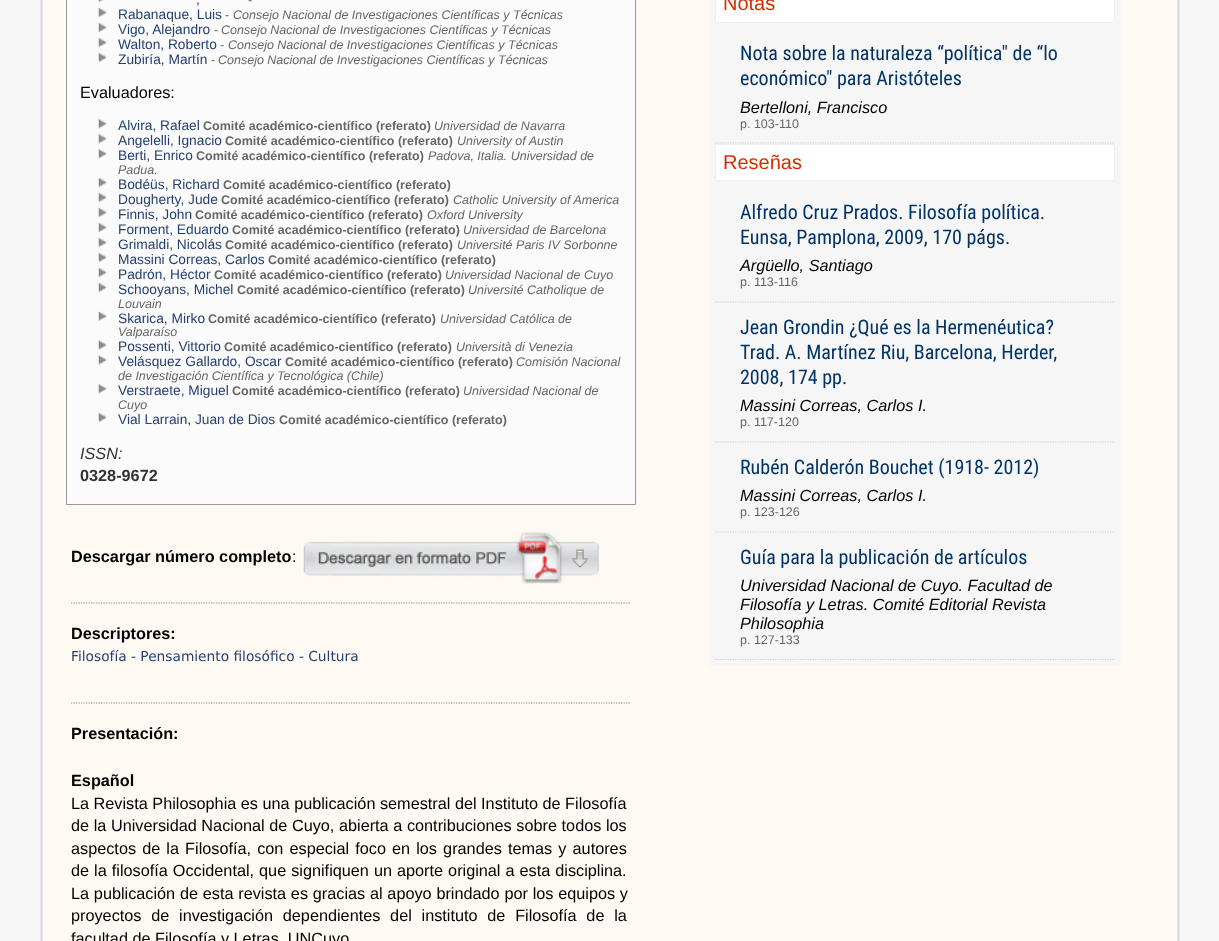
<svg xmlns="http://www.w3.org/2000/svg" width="1219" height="941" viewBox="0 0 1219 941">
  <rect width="100%" height="100%" fill="#f6f6f6"/>
  <image x="40" y="0" width="15" height="941" href="img/1.png"/>
  <path d="M55 0h1110v941H55z" fill="#fef9f2"/>
  <path d="M66.5 -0.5h569v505H66.5z" fill="#fbfbfb" stroke="#999"/>
  <image x="98" y="0" width="5" height="3" href="img/2.png"/>
  <image x="97" y="6" width="10" height="12" href="img/3.png"/>
  <image x="97" y="21" width="10" height="12" href="img/3.png"/>
  <image x="97" y="36" width="10" height="12" href="img/4.png"/>
  <image x="97" y="51" width="10" height="12" href="img/3.png"/>
  <image x="97" y="117" width="10" height="12" href="img/5.png"/>
  <image x="97" y="132" width="10" height="12" href="img/5.png"/>
  <image x="97" y="147" width="10" height="12" href="img/5.png"/>
  <image x="97" y="176" width="10" height="12" href="img/3.png"/>
  <image x="97" y="191" width="10" height="12" href="img/3.png"/>
  <image x="97" y="206" width="10" height="12" href="img/3.png"/>
  <image x="97" y="221" width="10" height="12" href="img/3.png"/>
  <image x="97" y="236" width="10" height="12" href="img/3.png"/>
  <image x="97" y="251" width="10" height="12" href="img/3.png"/>
  <image x="97" y="266" width="10" height="12" href="img/3.png"/>
  <image x="97" y="281" width="10" height="12" href="img/4.png"/>
  <image x="97" y="311" width="10" height="10" href="img/6.png"/>
  <image x="97" y="340" width="10" height="10" href="img/7.png"/>
  <image x="97" y="355" width="10" height="10" href="img/7.png"/>
  <image x="97" y="382" width="10" height="12" href="img/5.png"/>
  <image x="97" y="411" width="10" height="12" href="img/3.png"/>
  <image x="303" y="532" width="297" height="52" href="img/8.png"/>
  <path d="M71 603H631" fill="none" stroke="#8e8e8e" stroke-width="1.2" stroke-dasharray="1.25 1.25"/>
  <path d="M71 703H631" fill="none" stroke="#8e8e8e" stroke-width="1.2" stroke-dasharray="1.25 1.25"/>
  <path d="M709 0h412v666H709z" fill="#f6f6f6"/>
  <path d="M715.5 -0.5h399v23H715.5z" fill="#fff" stroke="#efefef"/>
  <path d="M715 143H1115" fill="none" stroke="#ccc" stroke-width="1.2" stroke-dasharray="1.25 1.25"/>
  <path d="M715.5 144.5h399v36H715.5z" fill="#fff" stroke="#efefef"/>
  <path d="M715 302H1115" fill="none" stroke="#ccc" stroke-width="1.2" stroke-dasharray="1.25 1.25"/>
  <path d="M715 442H1115" fill="none" stroke="#ccc" stroke-width="1.2" stroke-dasharray="1.25 1.25"/>
  <path d="M715 532H1115" fill="none" stroke="#ccc" stroke-width="1.2" stroke-dasharray="1.25 1.25"/>
  <path d="M715 659.5H1115" fill="none" stroke="#ccc" stroke-width="1.2" stroke-dasharray="1.25 1.25"/>
  <image x="1165" y="0" width="15" height="941" href="img/9.png"/>
  <text x="248" y="4" font-family="Liberation Sans" font-size="12.5" fill="#666">-</text>
  <g font-family="Liberation Sans" font-size="13.75" fill="#243f71">
    <text x="196" y="4">,</text>
    <text x="118" y="19">Rabanaque, Luis</text>
  </g>
  <text x="225" y="19" font-family="Liberation Sans" font-size="12.5" fill="#666">-</text>
  <text x="233" y="19" font-family="Liberation Sans" font-size="12.5" font-style="italic" fill="#666">Consejo Nacional de Investigaciones Científicas y Técnicas</text>
  <text x="118" y="34" font-family="Liberation Sans" font-size="13.75" fill="#243f71">Vigo, Alejandro</text>
  <text x="214" y="34" font-family="Liberation Sans" font-size="12.5" fill="#666">-</text>
  <text x="221" y="34" font-family="Liberation Sans" font-size="12.5" font-style="italic" fill="#666">Consejo Nacional de Investigaciones Científicas y Técnicas</text>
  <text x="118" y="49" font-family="Liberation Sans" font-size="13.75" fill="#243f71">Walton, Roberto</text>
  <text x="220" y="49" font-family="Liberation Sans" font-size="12.5" fill="#666">-</text>
  <text x="228" y="49" font-family="Liberation Sans" font-size="12.5" font-style="italic" fill="#666">Consejo Nacional de Investigaciones Científicas y Técnicas</text>
  <text x="118" y="64" font-family="Liberation Sans" font-size="13.75" fill="#243f71">Zubiría, Martín</text>
  <text x="211" y="64" font-family="Liberation Sans" font-size="12.5" fill="#666">-</text>
  <text x="218" y="64" font-family="Liberation Sans" font-size="12.5" font-style="italic" fill="#666">Consejo Nacional de Investigaciones Científicas y Técnicas</text>
  <text x="80" y="98" font-family="Liberation Sans" font-size="16.25" fill="#000">Evaluadores:</text>
  <text x="118" y="130" font-family="Liberation Sans" font-size="13.75" fill="#243f71">Alvira, Rafael</text>
  <text x="203" y="130" font-family="Liberation Sans" font-size="12.5" font-weight="bold" fill="#666">Comité académico-científico (referato)</text>
  <text x="434" y="130" font-family="Liberation Sans" font-size="12.5" font-style="italic" fill="#666">Universidad de Navarra</text>
  <text x="118" y="145" font-family="Liberation Sans" font-size="13.75" fill="#243f71">Angelelli, Ignacio</text>
  <text x="225" y="145" font-family="Liberation Sans" font-size="12.5" font-weight="bold" fill="#666">Comité académico-científico (referato)</text>
  <text x="457" y="145" font-family="Liberation Sans" font-size="12.5" font-style="italic" fill="#666">University of Austin</text>
  <text x="118" y="160" font-family="Liberation Sans" font-size="13.75" fill="#243f71">Berti, Enrico</text>
  <text x="196" y="160" font-family="Liberation Sans" font-size="12.5" font-weight="bold" fill="#666">Comité académico-científico (referato)</text>
  <g font-family="Liberation Sans" font-size="12.5" font-style="italic" fill="#666">
    <text x="428" y="160">Padova, Italia. Universidad de</text>
    <text x="118" y="174">Padua.</text>
  </g>
  <text x="118" y="189" font-family="Liberation Sans" font-size="13.75" fill="#243f71">Bodéüs, Richard</text>
  <text x="223" y="189" font-family="Liberation Sans" font-size="12.5" font-weight="bold" fill="#666">Comité académico-científico (referato)</text>
  <text x="118" y="204" font-family="Liberation Sans" font-size="13.75" fill="#243f71">Dougherty, Jude</text>
  <text x="221" y="204" font-family="Liberation Sans" font-size="12.5" font-weight="bold" fill="#666">Comité académico-científico (referato)</text>
  <text x="453" y="204" font-family="Liberation Sans" font-size="12.5" font-style="italic" fill="#666">Catholic University of America</text>
  <text x="118" y="219" font-family="Liberation Sans" font-size="13.75" fill="#243f71">Finnis, John</text>
  <text x="195" y="219" font-family="Liberation Sans" font-size="12.5" font-weight="bold" fill="#666">Comité académico-científico (referato)</text>
  <text x="427" y="219" font-family="Liberation Sans" font-size="12.5" font-style="italic" fill="#666">Oxford University</text>
  <text x="118" y="234" font-family="Liberation Sans" font-size="13.75" fill="#243f71">Forment, Eduardo</text>
  <text x="232" y="234" font-family="Liberation Sans" font-size="12.5" font-weight="bold" fill="#666">Comité académico-científico (referato)</text>
  <text x="463" y="234" font-family="Liberation Sans" font-size="12.5" font-style="italic" fill="#666">Universidad de Barcelona</text>
  <text x="118" y="249" font-family="Liberation Sans" font-size="13.75" fill="#243f71">Grimaldi, Nicolás</text>
  <text x="225" y="249" font-family="Liberation Sans" font-size="12.5" font-weight="bold" fill="#666">Comité académico-científico (referato)</text>
  <text x="457" y="249" font-family="Liberation Sans" font-size="12.5" font-style="italic" fill="#666">Université Paris IV Sorbonne</text>
  <text x="118" y="264" font-family="Liberation Sans" font-size="13.75" fill="#243f71">Massini Correas, Carlos</text>
  <text x="268" y="264" font-family="Liberation Sans" font-size="12.5" font-weight="bold" fill="#666">Comité académico-científico (referato)</text>
  <text x="118" y="279" font-family="Liberation Sans" font-size="13.75" fill="#243f71">Padrón, Héctor</text>
  <text x="214" y="279" font-family="Liberation Sans" font-size="12.5" font-weight="bold" fill="#666">Comité académico-científico (referato)</text>
  <text x="445" y="279" font-family="Liberation Sans" font-size="12.5" font-style="italic" fill="#666">Universidad Nacional de Cuyo</text>
  <text x="118" y="294" font-family="Liberation Sans" font-size="13.75" fill="#243f71">Schooyans, Michel</text>
  <text x="237" y="294" font-family="Liberation Sans" font-size="12.5" font-weight="bold" fill="#666">Comité académico-científico (referato)</text>
  <g font-family="Liberation Sans" font-size="12.5" font-style="italic" fill="#666">
    <text x="468" y="294">Université Catholique de</text>
    <text x="118" y="308">Louvain</text>
  </g>
  <text x="118" y="323" font-family="Liberation Sans" font-size="13.75" fill="#243f71">Skarica, Mirko</text>
  <text x="208" y="323" font-family="Liberation Sans" font-size="12.5" font-weight="bold" fill="#666">Comité académico-científico (referato)</text>
  <g font-family="Liberation Sans" font-size="12.5" font-style="italic" fill="#666">
    <text x="440" y="323">Universidad Católica de</text>
    <text x="118" y="336">Valparaíso</text>
  </g>
  <text x="118" y="351" font-family="Liberation Sans" font-size="13.75" fill="#243f71">Possenti, Vittorio</text>
  <text x="224" y="351" font-family="Liberation Sans" font-size="12.5" font-weight="bold" fill="#666">Comité académico-científico (referato)</text>
  <text x="456" y="351" font-family="Liberation Sans" font-size="12.5" font-style="italic" fill="#666">Università di Venezia</text>
  <text x="118" y="366" font-family="Liberation Sans" font-size="13.75" fill="#243f71">Velásquez Gallardo, Oscar</text>
  <text x="285" y="366" font-family="Liberation Sans" font-size="12.5" font-weight="bold" fill="#666">Comité académico-científico (referato)</text>
  <g font-family="Liberation Sans" font-size="12.5" font-style="italic" fill="#666">
    <text x="516" y="366">Comisión Nacional</text>
    <text x="118" y="380">de Investigación Científica y Tecnológica (Chile)</text>
  </g>
  <text x="118" y="395" font-family="Liberation Sans" font-size="13.75" fill="#243f71">Verstraete, Miguel</text>
  <text x="232" y="395" font-family="Liberation Sans" font-size="12.5" font-weight="bold" fill="#666">Comité académico-científico (referato)</text>
  <g font-family="Liberation Sans" font-size="12.5" font-style="italic" fill="#666">
    <text x="463" y="395">Universidad Nacional de</text>
    <text x="118" y="409">Cuyo</text>
  </g>
  <text x="118" y="424" font-family="Liberation Sans" font-size="13.75" fill="#243f71">Vial Larrain, Juan de Dios</text>
  <text x="279" y="424" font-family="Liberation Sans" font-size="12.5" font-weight="bold" fill="#666">Comité académico-científico (referato)</text>
  <text x="80" y="459" font-family="Liberation Sans" font-size="16.25" font-style="italic" fill="#333">ISSN:</text>
  <text x="80" y="481" font-family="Liberation Sans" font-size="16.25" font-weight="bold" fill="#333">0328-9672</text>
  <text x="71" y="562" font-family="Liberation Sans" font-size="16.25" font-weight="bold" fill="#000">Descargar número completo</text>
  <text x="292" y="562" font-family="Liberation Sans" font-size="16.25" fill="#000">:</text>
  <text x="71" y="639" font-family="Liberation Sans" font-size="16.25" font-weight="bold" fill="#000">Descriptores:</text>
  <text x="71" y="661" font-family="DejaVu Sans" font-size="13.75" fill="#243f71">Filosofía - Pensamiento filosófico - Cultura</text>
  <g font-family="Liberation Sans" font-size="16.25" font-weight="bold" fill="#000">
    <text x="71" y="739">Presentación:</text>
    <text x="71" y="786">Español</text>
  </g>
  <g font-family="Liberation Sans" font-size="16.25" fill="#000">
    <text x="71" y="809">La Revista Philosophia es una publicación semestral del Instituto de Filosofía</text>
    <text x="71" y="831" word-spacing="0.1">de la Universidad Nacional de Cuyo, abierta a contribuciones sobre todos los</text>
    <text x="71" y="854" word-spacing="1.6">aspectos de la Filosofía, con especial foco en los grandes temas y autores</text>
    <text x="71" y="876" word-spacing="0.5">de la filosofía Occidental, que signifiquen un aporte original a esta disciplina.</text>
    <text x="71" y="899" word-spacing="0.25">La publicación de esta revista es gracias al apoyo brindado por los equipos y</text>
    <text x="71" y="921" word-spacing="5.25">proyectos de investigación dependientes del instituto de Filosofía de la</text>
    <text x="71" y="944">facultad de Filosofía y Letras, UNCuyo</text>
  </g>
  <text x="723" y="10" font-family="Liberation Sans" font-size="20" fill="#d72b00">Notas</text>
  <g font-family="Roboto Condensed" font-size="20" fill="#036">
    <text x="740" y="60">Nota sobre la naturaleza “política" de “lo</text>
    <text x="740" y="85">económico" para Aristóteles</text>
  </g>
  <text x="740" y="113" font-family="Liberation Sans" font-size="16.25" font-style="italic" fill="#000">Bertelloni, Francisco</text>
  <text x="740" y="128" font-family="Liberation Sans" font-size="12.5" fill="#666">p. 103-110</text>
  <text x="723" y="169" font-family="Liberation Sans" font-size="20" fill="#d72b00">Reseñas</text>
  <g font-family="Roboto Condensed" font-size="20" fill="#036">
    <text x="740" y="219">Alfredo Cruz Prados. Filosofía política.</text>
    <text x="740" y="244">Eunsa, Pamplona, 2009, 170 págs.</text>
  </g>
  <text x="740" y="271" font-family="Liberation Sans" font-size="16.25" font-style="italic" fill="#000">Argüello, Santiago</text>
  <text x="740" y="286" font-family="Liberation Sans" font-size="12.5" fill="#666">p. 113-116</text>
  <g font-family="Roboto Condensed" font-size="20" fill="#036">
    <text x="740" y="334">Jean Grondin ¿Qué es la Hermenéutica?</text>
    <text x="740" y="359">Trad. A. Martínez Riu, Barcelona, Herder,</text>
    <text x="740" y="384">2008, 174 pp.</text>
  </g>
  <text x="740" y="411" font-family="Liberation Sans" font-size="16.25" font-style="italic" fill="#000">Massini Correas, Carlos I.</text>
  <text x="740" y="426" font-family="Liberation Sans" font-size="12.5" fill="#666">p. 117-120</text>
  <text x="740" y="474" font-family="Roboto Condensed" font-size="20" fill="#036">Rubén Calderón Bouchet (1918- 2012)</text>
  <text x="740" y="501" font-family="Liberation Sans" font-size="16.25" font-style="italic" fill="#000">Massini Correas, Carlos I.</text>
  <text x="740" y="516" font-family="Liberation Sans" font-size="12.5" fill="#666">p. 123-126</text>
  <text x="740" y="564" font-family="Roboto Condensed" font-size="20" fill="#036">Guía para la publicación de artículos</text>
  <g font-family="Liberation Sans" font-size="16.25" font-style="italic" fill="#000">
    <text x="740" y="591">Universidad Nacional de Cuyo. Facultad de</text>
    <text x="740" y="610">Filosofía y Letras. Comité Editorial Revista</text>
    <text x="740" y="629">Philosophia</text>
  </g>
  <text x="740" y="644" font-family="Liberation Sans" font-size="12.5" fill="#666">p. 127-133</text>
</svg>
